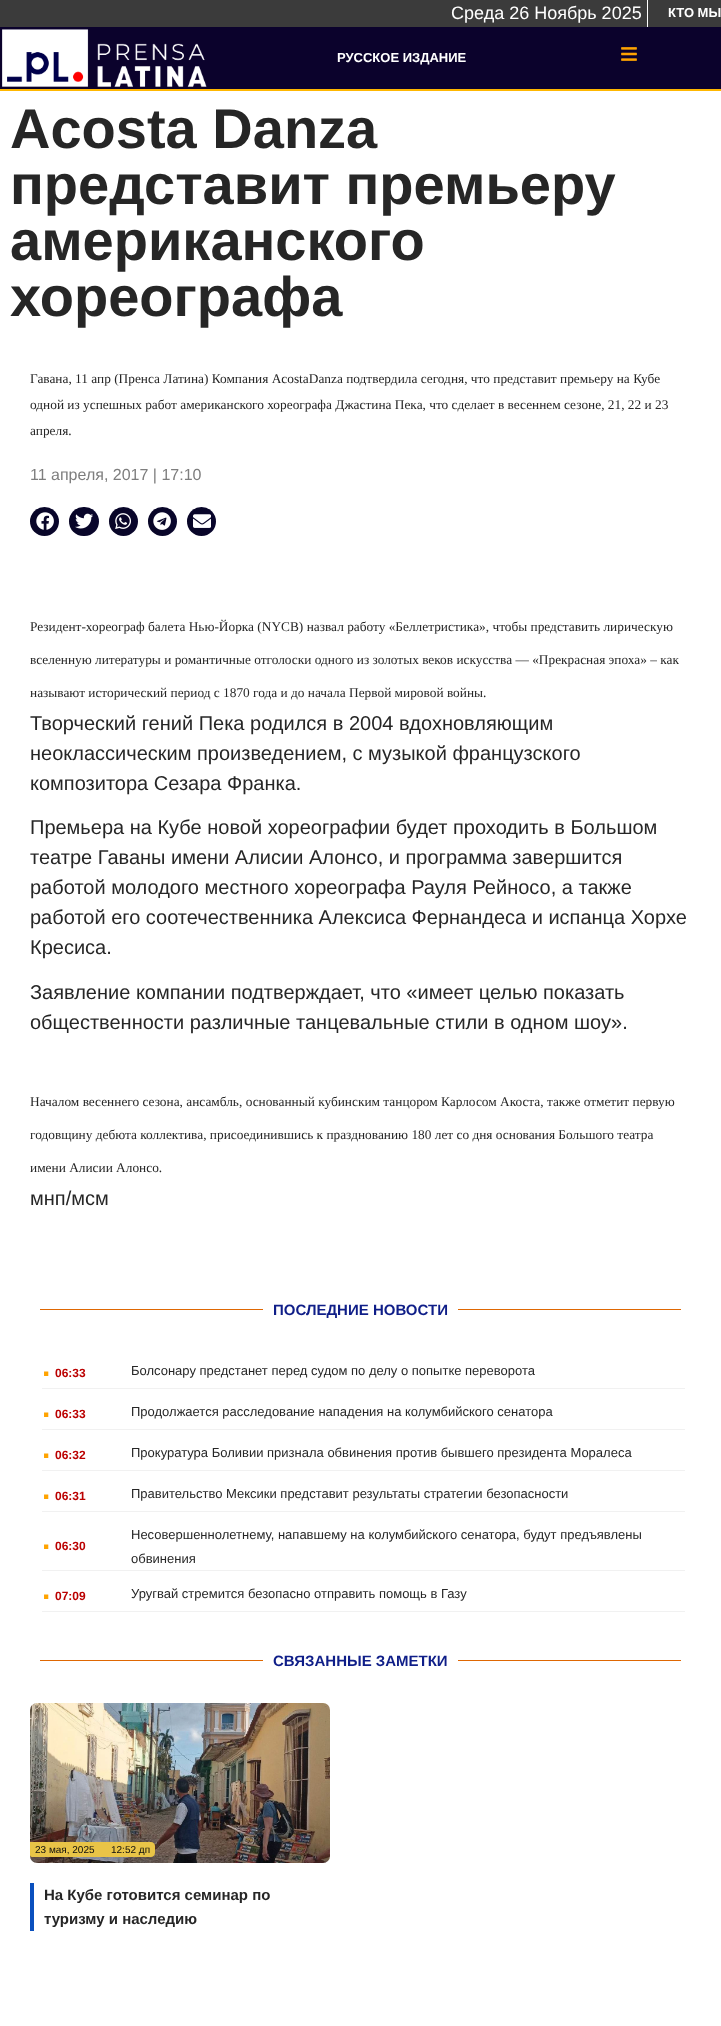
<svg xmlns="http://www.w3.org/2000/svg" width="721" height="2026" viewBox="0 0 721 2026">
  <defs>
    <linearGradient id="g1" gradientUnits="userSpaceOnUse" x1="30" y1="522" x2="59" y2="522"><stop offset="0" stop-color="#000" stop-opacity="0.12"/><stop offset="1" stop-color="#000" stop-opacity="0"/></linearGradient>
    <linearGradient id="g2" gradientUnits="userSpaceOnUse" x1="69" y1="522" x2="99" y2="522"><stop offset="0" stop-color="#000" stop-opacity="0.12"/><stop offset="1" stop-color="#000" stop-opacity="0"/></linearGradient>
    <linearGradient id="g3" gradientUnits="userSpaceOnUse" x1="109" y1="522" x2="138" y2="522"><stop offset="0" stop-color="#000" stop-opacity="0.12"/><stop offset="1" stop-color="#000" stop-opacity="0"/></linearGradient>
    <linearGradient id="g4" gradientUnits="userSpaceOnUse" x1="148" y1="522" x2="177" y2="522"><stop offset="0" stop-color="#000" stop-opacity="0.12"/><stop offset="1" stop-color="#000" stop-opacity="0"/></linearGradient>
    <linearGradient id="g5" gradientUnits="userSpaceOnUse" x1="187" y1="522" x2="216" y2="522"><stop offset="0" stop-color="#000" stop-opacity="0.12"/><stop offset="1" stop-color="#000" stop-opacity="0"/></linearGradient>
  </defs>
  <rect width="100%" height="100%" fill="#fff"/>
  <path d="M0 0h721v27H0z" fill="#3b3b3b"/>
  <path d="M647 0h1v27H647z" fill="#fff"/>
  <path d="M0 27h721v62H0z" fill="#0b022c"/>
  <path d="M0 89h721v2H0z" fill="#ffb700"/>
  <image x="2" y="29" width="205" height="58" href="img/1.png"/>
  <image x="621" y="47" width="16" height="14" href="img/2.png"/>
  <circle cx="44.5" cy="521.5" r="14.5" fill="#09062c"/>
  <circle cx="44.5" cy="521.5" r="14.5" fill="url(#g1)"/>
  <image x="36" y="512" width="18" height="18" href="img/3.png"/>
  <rect x="69" y="507" width="30" height="29" rx="14.5" fill="#09062c"/>
  <rect x="69" y="507" width="30" height="29" rx="14.5" fill="url(#g2)"/>
  <image x="75" y="513" width="18" height="16" href="img/4.png"/>
  <circle cx="123.5" cy="521.5" r="14.5" fill="#09062c"/>
  <circle cx="123.5" cy="521.5" r="14.5" fill="url(#g3)"/>
  <image x="115" y="513" width="16" height="16" href="img/5.png"/>
  <circle cx="162.5" cy="521.5" r="14.5" fill="#09062c"/>
  <circle cx="162.5" cy="521.5" r="14.5" fill="url(#g4)"/>
  <image x="153" y="512" width="18" height="18" href="img/6.png"/>
  <circle cx="201.5" cy="521.5" r="14.5" fill="#09062c"/>
  <circle cx="201.5" cy="521.5" r="14.5" fill="url(#g5)"/>
  <image x="193" y="514" width="18" height="14" href="img/7.png"/>
  <path d="M40 1309h223v1H40z" fill="#df6702"/>
  <path d="M458 1309h223v1H458z" fill="#df6702"/>
  <path d="M42 1388h643v1H42z" fill="#f1f1f1"/>
  <path d="M42 1429h643v1H42z" fill="#f1f1f1"/>
  <path d="M42 1470h643v1H42z" fill="#f1f1f1"/>
  <path d="M42 1511h643v1H42z" fill="#f1f1f1"/>
  <path d="M42 1570h643v1H42z" fill="#f1f1f1"/>
  <path d="M42 1611h643v1H42z" fill="#f1f1f1"/>
  <path d="M40 1660h223v1H40z" fill="#df6702"/>
  <path d="M458 1660h223v1H458z" fill="#df6702"/>
  <image x="30" y="1703" width="300" height="160" href="img/8.png"/>
  <path d="M30 1842H151C153 1842 155 1844 155 1846V1853C155 1855 153 1857 151 1857H32C31 1857 30 1856 30 1855Z" fill="#e9c447"/>
  <path d="M30 1883h4v48H30z" fill="#0a50be"/>
  <text x="451" y="19" font-family="Liberation Sans" font-size="18" fill="#fff">Среда 26 Ноябрь 2025</text>
  <g font-family="Liberation Sans" font-size="13" font-weight="bold" fill="#fff">
    <text x="668" y="17">КТО МЫ</text>
    <text x="337" y="62">РУССКОЕ ИЗДАНИЕ</text>
  </g>
  <g font-family="Liberation Sans" font-size="56" font-weight="bold" fill="#262626">
    <text x="10" y="148">Acosta Danza</text>
    <text x="10" y="204">представит премьеру</text>
    <text x="10" y="260">американского</text>
    <text x="10" y="316">хореографа</text>
  </g>
  <g font-family="Liberation Serif" font-size="13.35" fill="#262626">
    <text x="30" y="383">Гавана, 11 апр (Пренса Латина) Компания AcostaDanza подтвердила сегодня, что представит премьеру на Кубе</text>
    <text x="30" y="409">одной из успешных работ американского хореографа Джастина Пека, что сделает в весеннем сезоне, 21, 22 и 23</text>
    <text x="30" y="435">апреля.</text>
  </g>
  <text x="30" y="480" font-family="Liberation Sans" font-size="16" fill="#7e7e7e">11 апреля, 2017 | 17:10</text>
  <g font-family="Liberation Serif" font-size="13.35" fill="#262626">
    <text x="30" y="631">Резидент-хореограф балета Нью-Йорка (NYCB) назвал работу «Беллетристика», чтобы представить лирическую</text>
    <text x="30" y="664">вселенную литературы и романтичные отголоски одного из золотых веков искусства — «Прекрасная эпоха» – как</text>
    <text x="30" y="697">называют исторический период с 1870 года и до начала Первой мировой войны.</text>
  </g>
  <g font-family="Liberation Sans" font-size="20" fill="#262626">
    <text x="30" y="730">Творческий гений Пека родился в 2004 вдохновляющим</text>
    <text x="30" y="760">неоклассическим произведением, с музыкой французского</text>
    <text x="30" y="790">композитора Сезара Франка.</text>
    <text x="30" y="834">Премьера на Кубе новой хореографии будет проходить в Большом</text>
    <text x="30" y="864">театре Гаваны имени Алисии Алонсо, и программа завершится</text>
    <text x="30" y="894">работой молодого местного хореографа Рауля Рейносо, а также</text>
    <text x="30" y="924">работой его соотечественника Алексиса Фернандеса и испанца Хорхе</text>
    <text x="30" y="954">Кресиса.</text>
    <text x="30" y="999">Заявление компании подтверждает, что «имеет целью показать</text>
    <text x="30" y="1029">общественности различные танцевальные стили в одном шоу».</text>
  </g>
  <g font-family="Liberation Serif" font-size="13.35" fill="#262626">
    <text x="30" y="1106">Началом весеннего сезона, ансамбль, основанный кубинским танцором Карлосом Акоста, также отметит первую</text>
    <text x="30" y="1139">годовщину дебюта коллектива, присоединившись к празднованию 180 лет со дня основания Большого театра</text>
    <text x="30" y="1172">имени Алисии Алонсо.</text>
  </g>
  <text x="30" y="1205" font-family="Liberation Sans" font-size="20" fill="#262626">мнп/мсм</text>
  <text x="273" y="1315" font-family="Liberation Sans" font-size="15" font-weight="bold" fill="#0f1e88">ПОСЛЕДНИЕ НОВОСТИ</text>
  <text x="42" y="1376" font-family="Liberation Sans" font-size="30" font-weight="bold" fill="#ffa300">.</text>
  <text x="55" y="1377" font-family="Liberation Sans" font-size="12" font-weight="bold" fill="#b00">06:33</text>
  <text x="131" y="1375" font-family="Liberation Sans" font-size="13" fill="#262626">Болсонару предстанет перед судом по делу о попытке переворота</text>
  <text x="42" y="1417" font-family="Liberation Sans" font-size="30" font-weight="bold" fill="#ffa300">.</text>
  <text x="55" y="1418" font-family="Liberation Sans" font-size="12" font-weight="bold" fill="#b00">06:33</text>
  <text x="131" y="1416" font-family="Liberation Sans" font-size="13" fill="#262626">Продолжается расследование нападения на колумбийского сенатора</text>
  <text x="42" y="1458" font-family="Liberation Sans" font-size="30" font-weight="bold" fill="#ffa300">.</text>
  <text x="55" y="1459" font-family="Liberation Sans" font-size="12" font-weight="bold" fill="#b00">06:32</text>
  <text x="131" y="1457" font-family="Liberation Sans" font-size="13" fill="#262626">Прокуратура Боливии признала обвинения против бывшего президента Моралеса</text>
  <text x="42" y="1499" font-family="Liberation Sans" font-size="30" font-weight="bold" fill="#ffa300">.</text>
  <text x="55" y="1500" font-family="Liberation Sans" font-size="12" font-weight="bold" fill="#b00">06:31</text>
  <text x="131" y="1498" font-family="Liberation Sans" font-size="13" fill="#262626">Правительство Мексики представит результаты стратегии безопасности</text>
  <text x="42" y="1549" font-family="Liberation Sans" font-size="30" font-weight="bold" fill="#ffa300">.</text>
  <text x="55" y="1550" font-family="Liberation Sans" font-size="12" font-weight="bold" fill="#b00">06:30</text>
  <g font-family="Liberation Sans" font-size="13" fill="#262626">
    <text x="131" y="1539">Несовершеннолетнему, напавшему на колумбийского сенатора, будут предъявлены</text>
    <text x="131" y="1563">обвинения</text>
  </g>
  <text x="42" y="1599" font-family="Liberation Sans" font-size="30" font-weight="bold" fill="#ffa300">.</text>
  <text x="55" y="1600" font-family="Liberation Sans" font-size="12" font-weight="bold" fill="#b00">07:09</text>
  <text x="131" y="1598" font-family="Liberation Sans" font-size="13" fill="#262626">Уругвай стремится безопасно отправить помощь в Газу</text>
  <text x="273" y="1666" font-family="Liberation Sans" font-size="15" font-weight="bold" fill="#0f1e88">СВЯЗАННЫЕ ЗАМЕТКИ</text>
  <g font-family="Liberation Sans" font-size="10" fill="#0c0c0c">
    <text x="35" y="1853">23 мая, 2025</text>
    <text x="111" y="1853">12:52 дп</text>
  </g>
  <g font-family="Liberation Sans" font-size="15" font-weight="bold" fill="#262626">
    <text x="44" y="1900">На Кубе готовится семинар по</text>
    <text x="44" y="1924">туризму и наследию</text>
  </g>
</svg>
